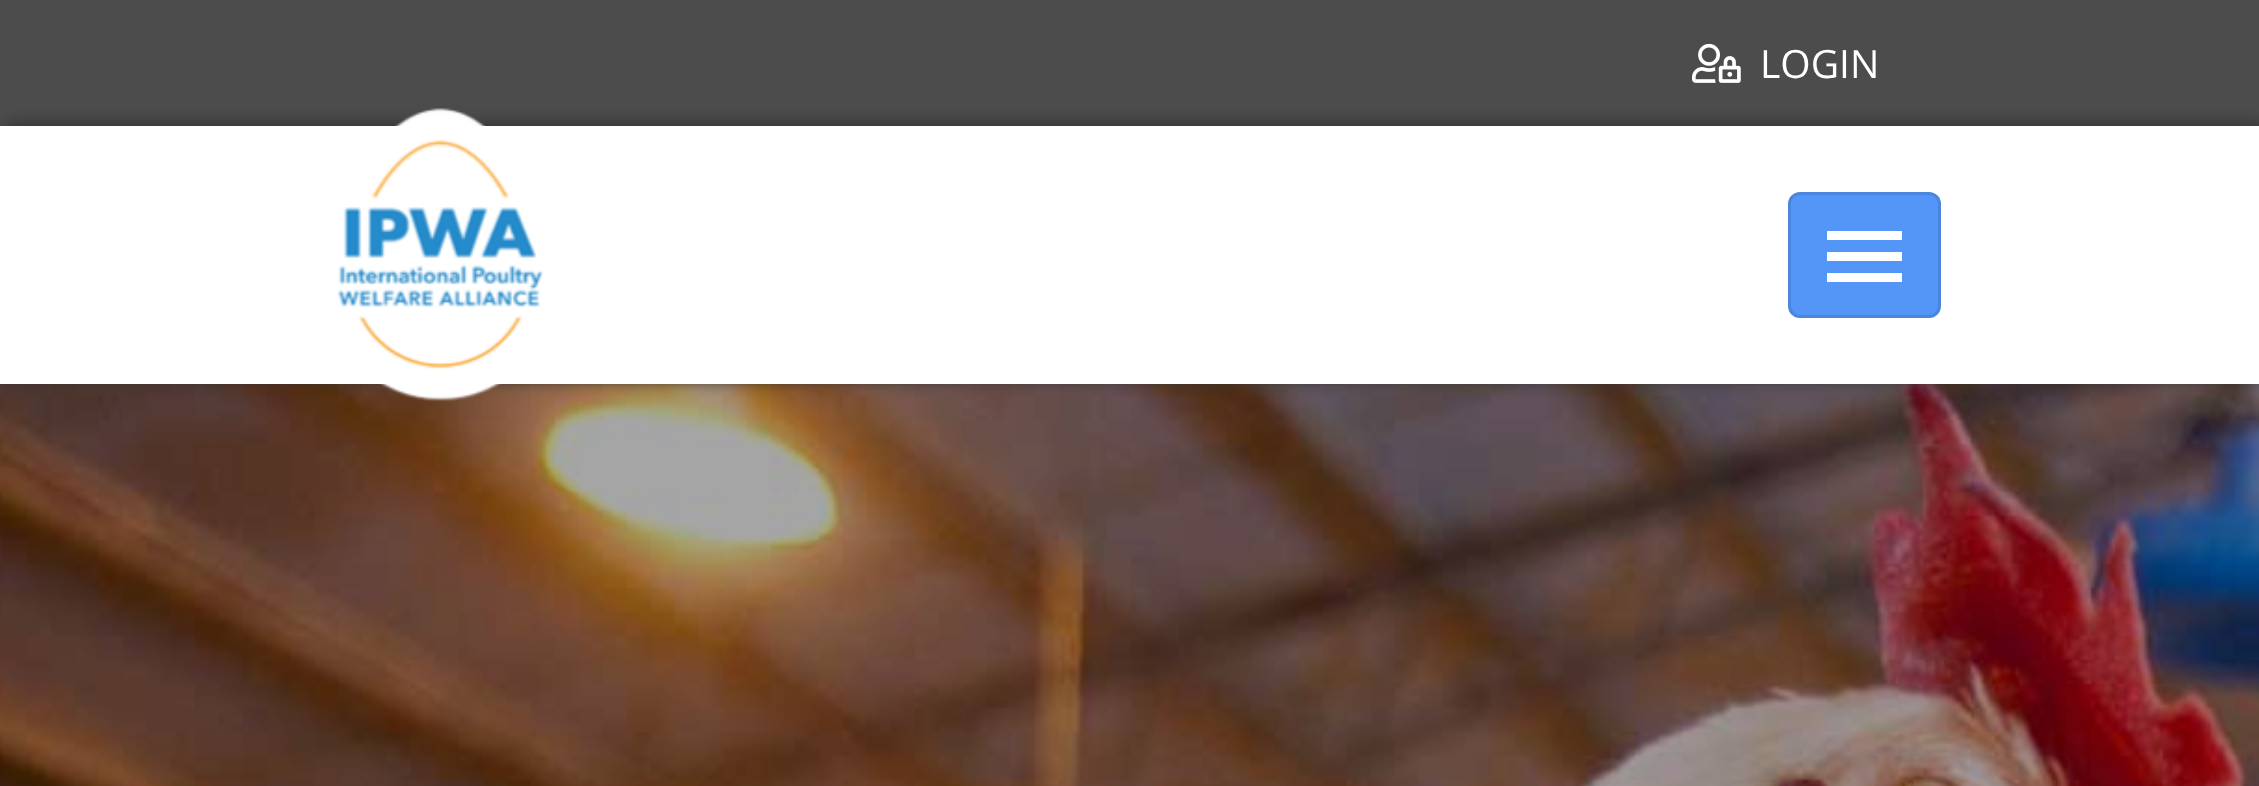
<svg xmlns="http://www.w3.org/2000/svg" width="2259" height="786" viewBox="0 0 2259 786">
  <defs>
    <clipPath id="clip1"><path d="M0 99H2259V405H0ZM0 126H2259V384H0Z" clip-rule="evenodd"/></clipPath>
  </defs>
  <rect width="100%" height="100%" fill="#fff"/>
  <path d="M0 0h2259v126H0z" fill="#4c4c4c"/>
  <image x="1692" y="43" width="49" height="40" href="img/1.png"/>
  <image x="0" y="384" width="2259" height="402" href="img/3.png"/>
  <g clip-path="url(#clip1)">
    <path d="M6 123h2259v258H6z" fill="#333" filter="blur(7.5px)"/>
  </g>
  <image x="338" y="108" width="206" height="294" href="img/2.png"/>
  <rect x="1788" y="192" width="153" height="126" rx="12" fill="#5495f8"/>
  <rect x="1789.5" y="193.5" width="150" height="123" rx="10.5" fill="none" stroke="#0000001a" stroke-width="3"/>
  <path d="M1827 231h75v9H1827z" fill="#fff"/>
  <path d="M1827 252h75v9H1827z" fill="#fff"/>
  <path d="M1827 273h75v9H1827z" fill="#fff"/>
  <text x="1760" y="78" font-family="Open Sans" font-size="39" fill="#fff">LOGIN</text>
</svg>
